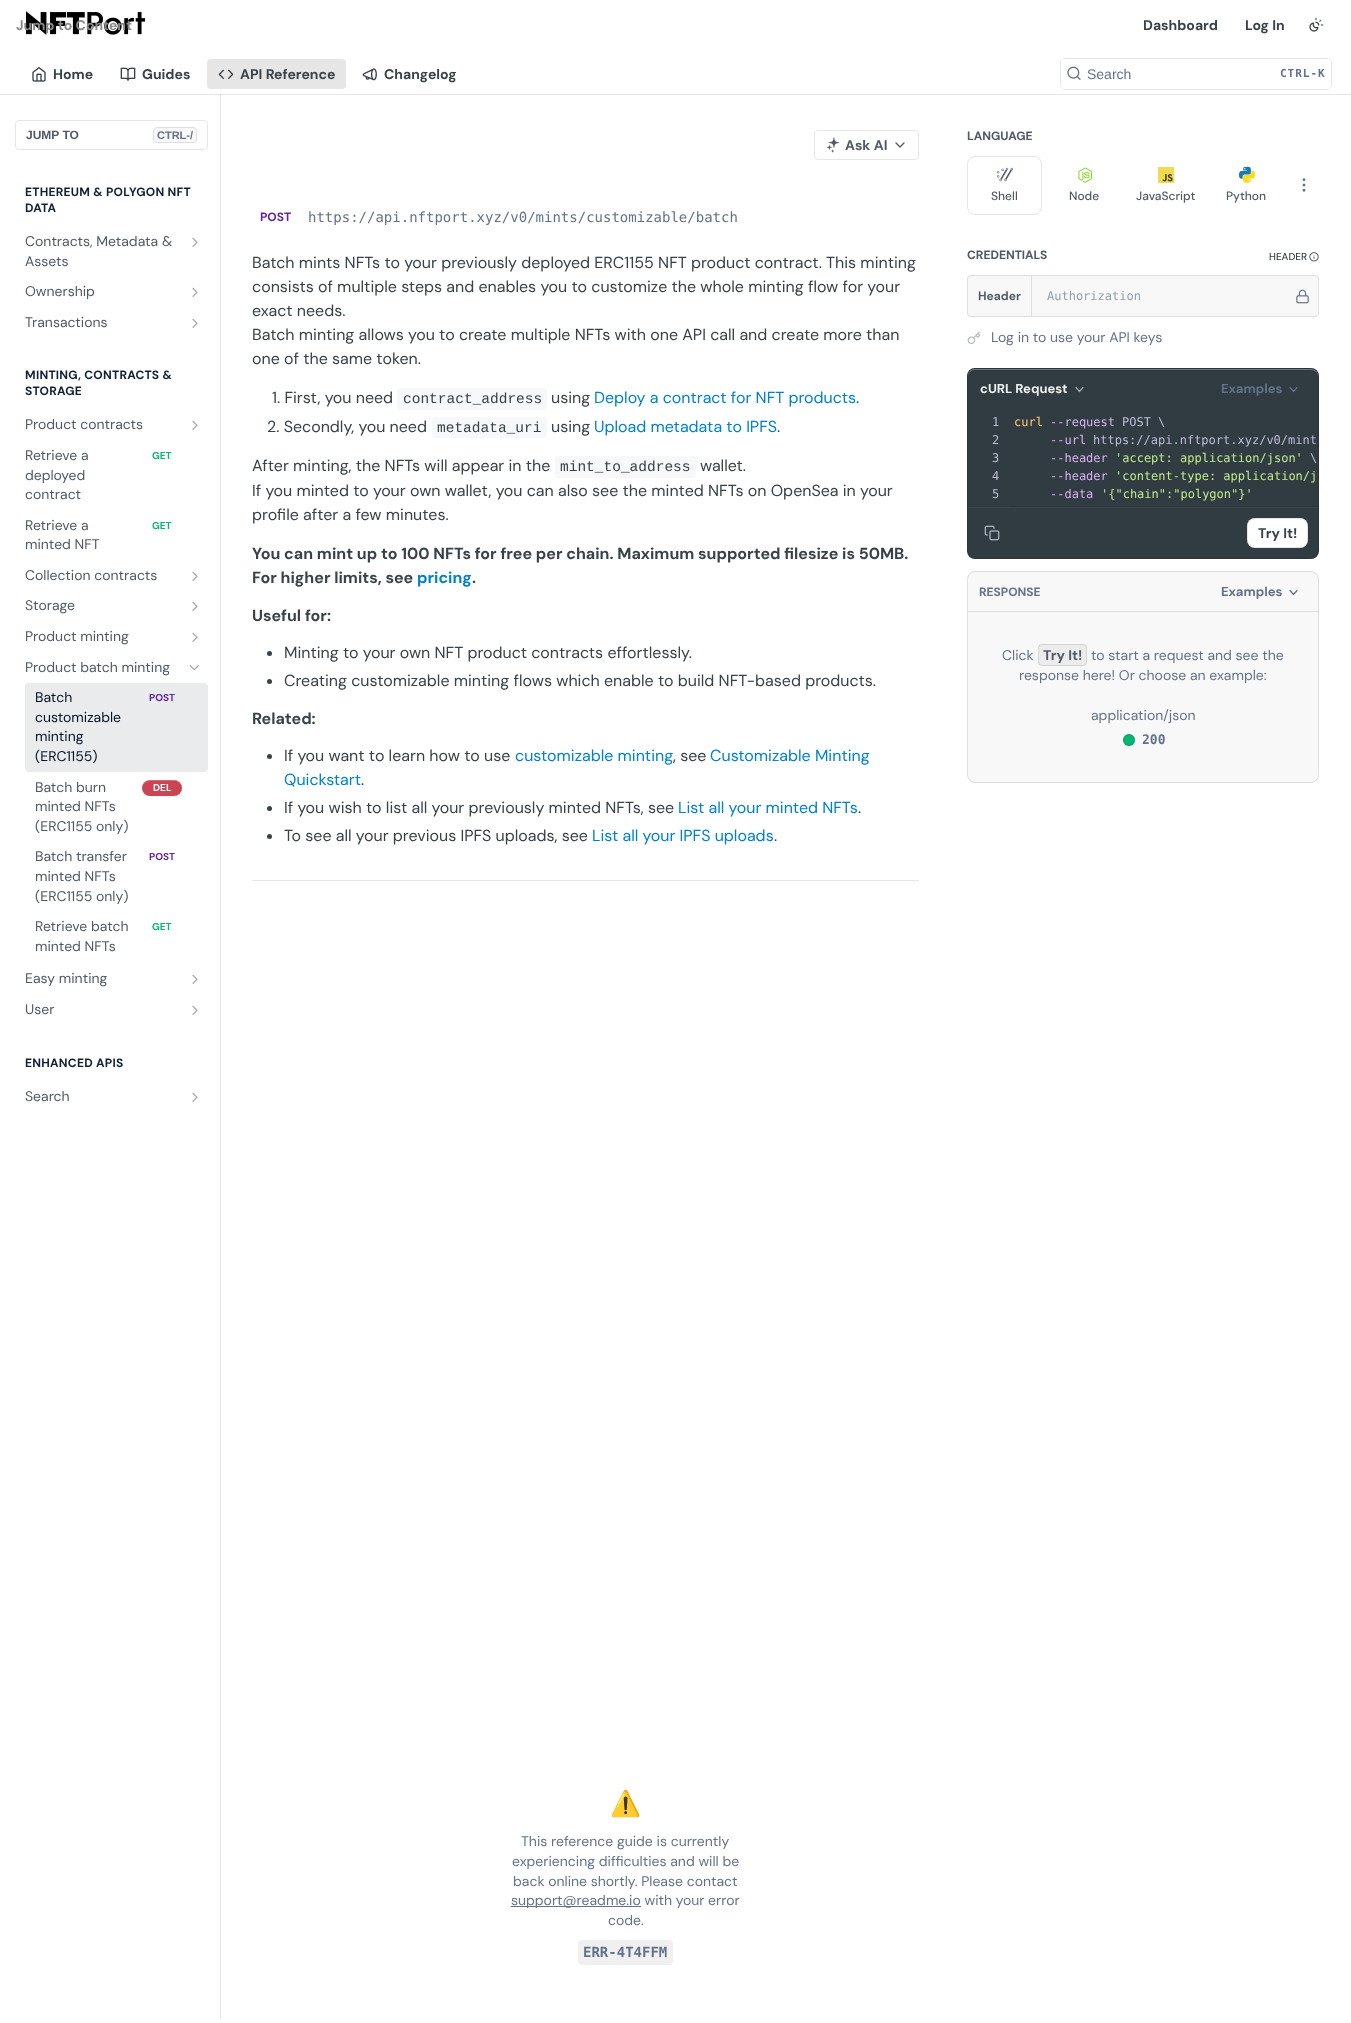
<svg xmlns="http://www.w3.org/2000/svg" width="1351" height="2023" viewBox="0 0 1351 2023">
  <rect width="100%" height="100%" fill="#fff"/>
  <path d="M0 94h1351v1H0z" fill="#e6e6e6"/>
  <image x="26" y="11" width="119" height="24" href="img/1.png"/>
  <image x="1309" y="17" width="15" height="15" href="img/2.png"/>
  <image x="32" y="67" width="14" height="15" href="img/3.png"/>
  <image x="120" y="67" width="16" height="14" href="img/4.png"/>
  <rect x="207" y="59" width="139" height="30" rx="4" fill="#e6e6e6"/>
  <image x="218" y="69" width="16" height="10" href="img/5.png"/>
  <image x="362" y="68" width="15" height="13" href="img/6.png"/>
  <rect x="1060.5" y="58.5" width="271" height="31" rx="4.5" fill="none" stroke="#e6e6e6"/>
  <rect x="1061" y="59" width="270" height="30" rx="4" fill="#fff"/>
  <image x="1067" y="66" width="14" height="14" href="img/7.png"/>
  <path d="M220 94h1v1925H220z" fill="#e6e6e6"/>
  <path d="M220 94h1v1H220z" fill="#cfcfcf"/>
  <rect x="15.5" y="120.5" width="192" height="29" rx="3.5" fill="none" stroke="#e6e6e6"/>
  <rect x="153.5" y="127.5" width="43" height="15" rx="3.5" fill="#f8f8f8" stroke="#dfdfdf"/>
  <image x="192" y="237" width="6" height="10" href="img/8.png"/>
  <image x="192" y="287" width="6" height="10" href="img/8.png"/>
  <image x="192" y="318" width="6" height="10" href="img/8.png"/>
  <image x="192" y="420" width="6" height="10" href="img/8.png"/>
  <image x="192" y="571" width="6" height="10" href="img/8.png"/>
  <image x="192" y="601" width="6" height="10" href="img/8.png"/>
  <image x="192" y="632" width="6" height="10" href="img/8.png"/>
  <image x="189" y="665" width="10" height="6" href="img/9.png"/>
  <rect x="25" y="683" width="183" height="89" rx="4" fill="#e9ebed"/>
  <rect x="142" y="781" width="40" height="16" rx="8" fill="#0000000d" filter="blur(1px)"/>
  <rect x="142" y="780" width="40" height="16" rx="8" fill="#cb4452"/>
  <path d="M150 781H176C179 782 181 784 182 786.5C181.5 783 178 780 174 780H150C145.5 780 142 783.5 142 788V789.5C142 785.5 145 781 150 781Z" fill="#ffffff33"/>
  <image x="192" y="974" width="6" height="10" href="img/8.png"/>
  <image x="192" y="1005" width="6" height="10" href="img/8.png"/>
  <image x="192" y="1092" width="6" height="10" href="img/8.png"/>
  <path d="M252 880h667v1H252z" fill="#e6e6e6"/>
  <rect x="814.5" y="130.5" width="104" height="29" rx="3.5" fill="none" stroke="#e6e6e6"/>
  <image x="826" y="137" width="14" height="16" href="img/10.png"/>
  <path d="M896 143L900 147L904 143" fill="none" stroke="#4f5a66" stroke-width="1.3" stroke-linecap="round" stroke-linejoin="round"/>
  <rect x="397" y="388" width="150" height="22" rx="3" fill="#f6f8fa"/>
  <rect x="432" y="417" width="115" height="21" rx="3" fill="#f6f8fa"/>
  <rect x="555" y="456" width="141" height="22" rx="3" fill="#f6f8fa"/>
  <circle cx="269.5" cy="653.5" r="2.5" fill="#384248"/>
  <circle cx="269.5" cy="681.5" r="2.5" fill="#384248"/>
  <circle cx="269.5" cy="756.5" r="2.5" fill="#384248"/>
  <circle cx="269.5" cy="808.5" r="2.5" fill="#384248"/>
  <circle cx="269.5" cy="836.5" r="2.5" fill="#384248"/>
  <path d="M511 1906h130v1H511z" fill="#637288"/>
  <rect x="578" y="1940" width="95" height="25" rx="4" fill="#f0f0f0"/>
  <image x="1302" y="178" width="4" height="14" href="img/11.png"/>
  <rect x="967.5" y="156.5" width="74" height="58" rx="7.5" fill="none" stroke="#e6e6e6"/>
  <image x="997" y="167" width="16" height="15" href="img/12.png"/>
  <image x="1078" y="167" width="14" height="16" href="img/13.png"/>
  <path d="M1158 167h16v16H1158z" fill="#f0db4f"/>
  <image x="1162" y="174" width="11" height="8" href="img/14.png"/>
  <image x="1239" y="166" width="12" height="13" href="img/15.png"/>
  <image x="1243" y="170" width="12" height="13" href="img/16.png"/>
  <image x="1309" y="252" width="10" height="10" href="img/17.png"/>
  <rect x="967.5" y="275.5" width="351" height="41" rx="3.5" fill="#f8f8f8" stroke="#dfdfdf"/>
  <path d="M1031 276h1v40H1031z" fill="#dfdfdf"/>
  <image x="1296" y="289" width="13" height="15" href="img/18.png"/>
  <image x="967" y="331" width="14" height="13" href="img/19.png"/>
  <rect x="967" y="368" width="352" height="191" rx="8" fill="#303b42"/>
  <path d="M975 370H1311C1315 370 1318 373 1318 377V376C1318 372 1315 369 1311 369H975C971 369 968 372 968 376V377C968 373 971 370 975 370Z" fill="#6e767b"/>
  <rect x="967.5" y="368.5" width="351" height="190" rx="7.5" fill="none" stroke="#0000001a"/>
  <path d="M1076 387.5L1079.5 391.5L1083 387.5" fill="none" stroke="#a3a8aa" stroke-width="1.2" stroke-linecap="round" stroke-linejoin="round"/>
  <path d="M1290 387.5L1293.5 391.5L1297 387.5" fill="none" stroke="#637288" stroke-width="1.2" stroke-linecap="round" stroke-linejoin="round"/>
  <path d="M1010 506h308v1H1010z" fill="#2b353b"/>
  <path d="M968 507h350v1H968z" fill="#3a454b"/>
  <image x="984" y="525" width="16" height="16" href="img/20.png"/>
  <rect x="1247" y="518" width="61" height="30" rx="8" fill="#fff"/>
  <rect x="1247.5" y="518.5" width="60" height="29" rx="7.5" fill="none" stroke="#0000001a"/>
  <rect x="967" y="571" width="352" height="212" rx="8" fill="#f8f8f8"/>
  <rect x="967.5" y="571.5" width="351" height="211" rx="7.5" fill="none" stroke="#0000001a"/>
  <path d="M968 611h350v1H968z" fill="#dfdfdf"/>
  <path d="M1290 590.5L1293.5 594.5L1297 590.5" fill="none" stroke="#637288" stroke-width="1.2" stroke-linecap="round" stroke-linejoin="round"/>
  <rect x="1038" y="644" width="49" height="22" rx="4" fill="#ececec"/>
  <rect x="1038.5" y="644.5" width="48" height="21" rx="3.5" fill="none" stroke="#0000001a"/>
  <circle cx="1129" cy="740" r="6" fill="#05b870"/>
  <circle cx="1129" cy="740" r="5.5" fill="none" stroke="#00000026"/>
  <g font-family="DM Sans" font-size="14" font-weight="bold" fill="#384248">
    <text x="1143" y="30">Dashboard</text>
    <text x="1245" y="30">Log In</text>
  </g>
  <text x="16" y="30" font-family="DM Sans" font-size="14" font-weight="bold" fill="#8a8a8a">Jump to Content</text>
  <g font-family="DM Sans" font-size="14" font-weight="bold" fill="#384248">
    <text x="53" y="79">Home</text>
    <text x="142" y="79">Guides</text>
    <text x="240" y="79">API Reference</text>
    <text x="384" y="79">Changelog</text>
  </g>
  <text x="1087" y="79" font-family="Liberation Sans" font-size="14" fill="#637288">Search</text>
  <text x="1280" y="77" font-family="DejaVu Sans Mono" font-size="11" font-weight="bold" letter-spacing="1" fill="#637288">CTRL-K</text>
  <text x="26" y="139" font-family="Liberation Sans" font-size="12" font-weight="bold" fill="#4f5a66">JUMP TO</text>
  <text x="157" y="139" font-family="Liberation Sans" font-size="11" font-weight="bold" fill="#637288">CTRL-/</text>
  <g font-family="DM Sans" font-size="12" font-weight="bold" letter-spacing="0.25" fill="#102136">
    <text x="25" y="196">ETHEREUM &amp; POLYGON NFT</text>
    <text x="25" y="212">DATA</text>
  </g>
  <g font-family="DM Sans" font-size="14" fill="#4f5a66">
    <text x="25" y="246">Contracts, Metadata &amp;</text>
    <text x="25" y="266">Assets</text>
    <text x="25" y="296">Ownership</text>
    <text x="25" y="327">Transactions</text>
  </g>
  <g font-family="DM Sans" font-size="12" font-weight="bold" letter-spacing="0.25" fill="#102136">
    <text x="25" y="379">MINTING, CONTRACTS &amp;</text>
    <text x="25" y="395">STORAGE</text>
  </g>
  <g font-family="DM Sans" font-size="14" fill="#4f5a66">
    <text x="25" y="429">Product contracts</text>
    <text x="25" y="460">Retrieve a</text>
    <text x="25" y="480">deployed</text>
    <text x="25" y="499">contract</text>
  </g>
  <text x="152" y="459" font-family="DM Sans" font-size="10" font-weight="bold" fill="#05b870">GET</text>
  <g font-family="DM Sans" font-size="14" fill="#4f5a66">
    <text x="25" y="530">Retrieve a</text>
    <text x="25" y="549">minted NFT</text>
  </g>
  <text x="152" y="529" font-family="DM Sans" font-size="10" font-weight="bold" fill="#05b870">GET</text>
  <g font-family="DM Sans" font-size="14" fill="#4f5a66">
    <text x="25" y="580">Collection contracts</text>
    <text x="25" y="610">Storage</text>
    <text x="25" y="641">Product minting</text>
    <text x="25" y="672">Product batch minting</text>
  </g>
  <g font-family="DM Sans" font-size="14" fill="#071222">
    <text x="35" y="702">Batch</text>
    <text x="35" y="722">customizable</text>
    <text x="35" y="741">minting</text>
    <text x="35" y="761">(ERC1155)</text>
  </g>
  <text x="149" y="701" font-family="DM Sans" font-size="10" font-weight="bold" fill="#60259f">POST</text>
  <g font-family="DM Sans" font-size="14" fill="#4f5a66">
    <text x="35" y="792">Batch burn</text>
    <text x="35" y="811">minted NFTs</text>
    <text x="35" y="831">(ERC1155 only)</text>
  </g>
  <text x="153" y="791" font-family="DM Sans" font-size="10" font-weight="bold" fill="#fff">DEL</text>
  <g font-family="DM Sans" font-size="14" fill="#4f5a66">
    <text x="35" y="861">Batch transfer</text>
    <text x="35" y="881">minted NFTs</text>
    <text x="35" y="901">(ERC1155 only)</text>
  </g>
  <text x="149" y="860" font-family="DM Sans" font-size="10" font-weight="bold" fill="#60259f">POST</text>
  <g font-family="DM Sans" font-size="14" fill="#4f5a66">
    <text x="35" y="931">Retrieve batch</text>
    <text x="35" y="951">minted NFTs</text>
  </g>
  <text x="152" y="930" font-family="DM Sans" font-size="10" font-weight="bold" fill="#05b870">GET</text>
  <g font-family="DM Sans" font-size="14" fill="#4f5a66">
    <text x="25" y="983">Easy minting</text>
    <text x="25" y="1014">User</text>
  </g>
  <text x="25" y="1067" font-family="DM Sans" font-size="12" font-weight="bold" letter-spacing="0.25" fill="#102136">ENHANCED APIS</text>
  <text x="25" y="1101" font-family="DM Sans" font-size="14" fill="#4f5a66">Search</text>
  <text x="845" y="150" font-family="DM Sans" font-size="14" font-weight="bold" fill="#4f5a66">Ask AI</text>
  <text x="260" y="221" font-family="DM Sans" font-size="12" font-weight="bold" fill="#60259f">POST</text>
  <text x="308" y="222" font-family="DejaVu Sans Mono" font-size="14" fill="#637288">https://api.nftport.xyz/v0/mints/customizable/batch</text>
  <g font-family="DM Sans" font-size="16" fill="#384248">
    <text x="252" y="268">Batch mints NFTs to your previously deployed ERC1155 NFT product contract. This minting</text>
    <text x="252" y="292">consists of multiple steps and enables you to customize the whole minting flow for your</text>
    <text x="252" y="316">exact needs.</text>
    <text x="252" y="340">Batch minting allows you to create multiple NFTs with one API call and create more than</text>
    <text x="252" y="364">one of the same token.</text>
    <text x="272" y="403">1. First, you need</text>
  </g>
  <text x="403" y="403" font-family="Liberation Mono" font-size="14.5" fill="#384248">contract_address</text>
  <text x="551" y="403" font-family="DM Sans" font-size="16" fill="#384248">using</text>
  <text x="594" y="403" font-family="DM Sans" font-size="16" fill="#0081cc">Deploy a contract for NFT products</text>
  <g font-family="DM Sans" font-size="16" fill="#384248">
    <text x="856" y="403">.</text>
    <text x="267" y="432">2. Secondly, you need</text>
  </g>
  <text x="437" y="432" font-family="Liberation Mono" font-size="14.5" fill="#384248">metadata_uri</text>
  <text x="551" y="432" font-family="DM Sans" font-size="16" fill="#384248">using</text>
  <text x="594" y="432" font-family="DM Sans" font-size="16" fill="#0081cc">Upload metadata to IPFS</text>
  <g font-family="DM Sans" font-size="16" fill="#384248">
    <text x="777" y="432">.</text>
    <text x="252" y="471">After minting, the NFTs will appear in the</text>
  </g>
  <text x="560" y="471" font-family="Liberation Mono" font-size="14.5" fill="#384248">mint_to_address</text>
  <g font-family="DM Sans" font-size="16" fill="#384248">
    <text x="700" y="471">wallet.</text>
    <text x="252" y="496">If you minted to your own wallet, you can also see the minted NFTs on OpenSea in your</text>
    <text x="252" y="520">profile after a few minutes.</text>
  </g>
  <g font-family="DM Sans" font-size="16" font-weight="bold" fill="#384248">
    <text x="252" y="559">You can mint up to 100 NFTs for free per chain. Maximum supported filesize is 50MB.</text>
    <text x="252" y="583">For higher limits, see</text>
  </g>
  <text x="417" y="583" font-family="DM Sans" font-size="16" font-weight="bold" fill="#0081cc">pricing</text>
  <g font-family="DM Sans" font-size="16" font-weight="bold" fill="#384248">
    <text x="472" y="583">.</text>
    <text x="252" y="621">Useful for:</text>
  </g>
  <g font-family="DM Sans" font-size="16" fill="#384248">
    <text x="284" y="658">Minting to your own NFT product contracts effortlessly.</text>
    <text x="284" y="686">Creating customizable minting flows which enable to build NFT-based products.</text>
  </g>
  <text x="252" y="724" font-family="DM Sans" font-size="16" font-weight="bold" fill="#384248">Related:</text>
  <text x="284" y="761" font-family="DM Sans" font-size="16" fill="#384248">If you want to learn how to use</text>
  <text x="515" y="761" font-family="DM Sans" font-size="16" fill="#0081cc">customizable minting</text>
  <text x="673" y="761" font-family="DM Sans" font-size="16" fill="#384248">, see</text>
  <g font-family="DM Sans" font-size="16" fill="#0081cc">
    <text x="710" y="761">Customizable Minting</text>
    <text x="284" y="785">Quickstart</text>
  </g>
  <g font-family="DM Sans" font-size="16" fill="#384248">
    <text x="361" y="785">.</text>
    <text x="284" y="813">If you wish to list all your previously minted NFTs, see</text>
  </g>
  <text x="678" y="813" font-family="DM Sans" font-size="16" fill="#0081cc">List all your minted NFTs</text>
  <g font-family="DM Sans" font-size="16" fill="#384248">
    <text x="858" y="813">.</text>
    <text x="284" y="841">To see all your previous IPFS uploads, see</text>
  </g>
  <text x="592" y="841" font-family="DM Sans" font-size="16" fill="#0081cc">List all your IPFS uploads</text>
  <text x="774" y="841" font-family="DM Sans" font-size="16" fill="#384248">.</text>
  <text x="610" y="1812" font-family="Noto Color Emoji" font-size="25" fill="#384248">⚠️</text>
  <g font-family="DM Sans" font-size="14" fill="#637288">
    <text x="521" y="1846">This reference guide is currently</text>
    <text x="512" y="1866">experiencing difficulties and will be</text>
    <text x="513" y="1886">back online shortly. Please contact</text>
    <text x="511" y="1905">support@readme.io with your error</text>
    <text x="608" y="1925">code.</text>
  </g>
  <text x="583" y="1957" font-family="DejaVu Sans Mono" font-size="14" font-weight="bold" fill="#637288">ERR-4T4FFM</text>
  <text x="967" y="140" font-family="DM Sans" font-size="12" font-weight="bold" fill="#4f5a66">LANGUAGE</text>
  <g font-family="DM Sans" font-size="12" font-weight="500" fill="#4f5a66">
    <text x="991" y="200">Shell</text>
    <text x="1069" y="200">Node</text>
    <text x="1136" y="200">JavaScript</text>
    <text x="1226" y="200">Python</text>
  </g>
  <text x="967" y="259" font-family="DM Sans" font-size="12" font-weight="bold" fill="#4f5a66">CREDENTIALS</text>
  <text x="1269" y="260" font-family="DM Sans" font-size="10" font-weight="500" fill="#384248">HEADER</text>
  <text x="978" y="300" font-family="DM Sans" font-size="12" font-weight="bold" fill="#4f5a66">Header</text>
  <text x="1047" y="300" font-family="DejaVu Sans Mono" font-size="12" fill="#939eae">Authorization</text>
  <text x="991" y="342" font-family="DM Sans" font-size="14" fill="#637288">Log in to use your API keys</text>
  <text x="980" y="393" font-family="DM Sans" font-size="13" font-weight="bold" fill="#f0f0f0">cURL Request</text>
  <text x="1221" y="393" font-family="DM Sans" font-size="13" font-weight="bold" fill="#637288">Examples</text>
  <text x="992" y="426" font-family="DejaVu Sans Mono" font-size="12" fill="#bebcd7">1</text>
  <text x="1014" y="426" font-family="DejaVu Sans Mono" font-size="12" fill="#ffcb6b">curl</text>
  <text x="1050" y="426" font-family="DejaVu Sans Mono" font-size="12" fill="#d7b2f0">--request</text>
  <g font-family="DejaVu Sans Mono" font-size="12" fill="#bebcd7">
    <text x="1122" y="426">POST \</text>
    <text x="992" y="444">2</text>
  </g>
  <text x="1050" y="444" font-family="DejaVu Sans Mono" font-size="12" fill="#d7b2f0">--url</text>
  <g font-family="DejaVu Sans Mono" font-size="12" fill="#bebcd7">
    <text x="1093" y="444">https://api.nftport.xyz/v0/mint</text>
    <text x="992" y="462">3</text>
  </g>
  <text x="1050" y="462" font-family="DejaVu Sans Mono" font-size="12" fill="#d7b2f0">--header</text>
  <text x="1115" y="462" font-family="DejaVu Sans Mono" font-size="12" fill="#c3e88d">'accept: application/json'</text>
  <g font-family="DejaVu Sans Mono" font-size="12" fill="#bebcd7">
    <text x="1310" y="462">\</text>
    <text x="992" y="480">4</text>
  </g>
  <text x="1050" y="480" font-family="DejaVu Sans Mono" font-size="12" fill="#d7b2f0">--header</text>
  <text x="1115" y="480" font-family="DejaVu Sans Mono" font-size="12" fill="#c3e88d">'content-type: application/j</text>
  <text x="992" y="498" font-family="DejaVu Sans Mono" font-size="12" fill="#bebcd7">5</text>
  <text x="1050" y="498" font-family="DejaVu Sans Mono" font-size="12" fill="#d7b2f0">--data</text>
  <text x="1101" y="498" font-family="DejaVu Sans Mono" font-size="12" fill="#c3e88d">'{"chain":"polygon"}'</text>
  <text x="1258" y="538" font-family="DM Sans" font-size="14" font-weight="bold" fill="#384248">Try It!</text>
  <text x="979" y="596" font-family="DM Sans" font-size="12" font-weight="bold" fill="#637288">RESPONSE</text>
  <text x="1221" y="596" font-family="DM Sans" font-size="13" font-weight="bold" fill="#637288">Examples</text>
  <text x="1002" y="660" font-family="DM Sans" font-size="14" fill="#637288">Click</text>
  <text x="1043" y="660" font-family="DM Sans" font-size="14" font-weight="bold" fill="#4f5a66">Try It!</text>
  <g font-family="DM Sans" font-size="14" fill="#637288">
    <text x="1091" y="660">to start a request and see the</text>
    <text x="1019" y="680">response here! Or choose an example:</text>
    <text x="1091" y="720">application/json</text>
  </g>
  <text x="1142" y="744" font-family="DejaVu Sans Mono" font-size="13" font-weight="bold" fill="#637288">200</text>
</svg>
